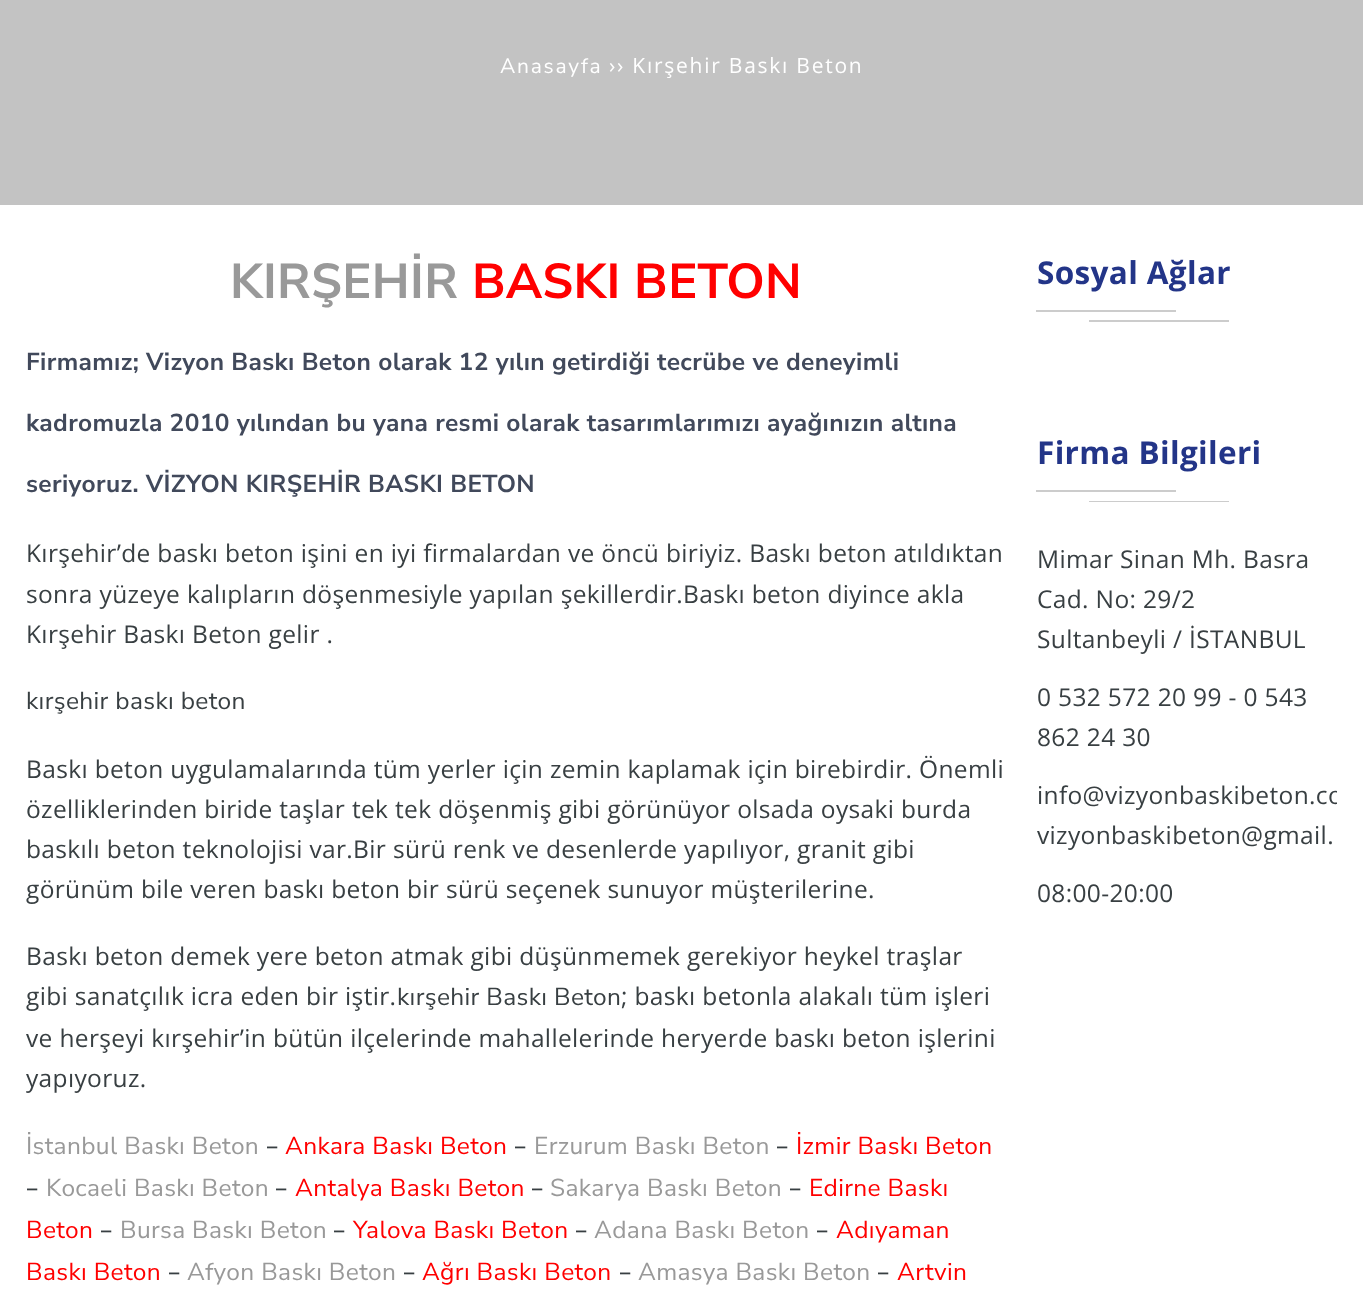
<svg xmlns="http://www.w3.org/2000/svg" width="1363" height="1298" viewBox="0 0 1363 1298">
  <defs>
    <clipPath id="clip1"><path d="M1019 432h318v497H1019z"/></clipPath>
  </defs>
  <rect width="100%" height="100%" fill="#fff"/>
  <path d="M0 0h1363v205H0z" fill="#c3c3c3"/>
  <path d="M1036 310h140v2H1036z" fill="#ccc"/>
  <path d="M1089 320h140v2H1089z" fill="#ccc"/>
  <path d="M1036 490h140v2H1036z" fill="#ccc"/>
  <path d="M1089 501h140v1H1089z" fill="#ccc"/>
  <text x="500" y="73" font-family="Nunito Sans" font-size="21" letter-spacing="1.75" fill="#fff">Anasayfa</text>
  <text x="609" y="73" font-family="Open Sans" font-size="21" letter-spacing="1.75" fill="#fff">›› Kırşehir Baskı Beton</text>
  <text x="230" y="298" font-family="Nunito Sans" font-size="49" font-weight="bold" letter-spacing="0.35" fill="#999">KIRŞEHİR</text>
  <text x="472" y="298" font-family="Nunito Sans" font-size="49" font-weight="bold" letter-spacing="0.35" fill="#f00">BASKI BETON</text>
  <g font-family="Nunito Sans" font-size="24.5" font-weight="bold" letter-spacing="0.35" fill="#41495b">
    <text x="26" y="370">Firmamız; Vizyon Baskı Beton olarak 12 yılın getirdiği tecrübe ve deneyimli</text>
    <text x="26" y="431">kadromuzla 2010 yılından bu yana resmi olarak tasarımlarımızı ayağınızın altına</text>
    <text x="26" y="492">seriyoruz. VİZYON KIRŞEHİR BASKI BETON</text>
  </g>
  <g font-family="Open Sans" font-size="24.5" letter-spacing="0.35" fill="#383f42">
    <text x="26" y="562">Kırşehir’de baskı beton işini en iyi firmalardan ve öncü biriyiz. Baskı beton atıldıktan</text>
    <text x="26" y="603">sonra yüzeye kalıpların döşenmesiyle yapılan şekillerdir.Baskı beton diyince akla</text>
    <text x="26" y="643">Kırşehir Baskı Beton gelir .</text>
  </g>
  <text x="26" y="709" font-family="Nunito Sans" font-size="24.5" letter-spacing="0.35" fill="#383f42">kırşehir baskı beton</text>
  <g font-family="Open Sans" font-size="24.5" letter-spacing="0.35" fill="#383f42">
    <text x="26" y="778">Baskı beton uygulamalarında tüm yerler için zemin kaplamak için birebirdir. Önemli</text>
    <text x="26" y="818">özelliklerinden biride taşlar tek tek döşenmiş gibi görünüyor olsada oysaki burda</text>
    <text x="26" y="858">baskılı beton teknolojisi var.Bir sürü renk ve desenlerde yapılıyor, granit gibi</text>
    <text x="26" y="898">görünüm bile veren baskı beton bir sürü seçenek sunuyor müşterilerine.</text>
    <text x="26" y="965">Baskı beton demek yere beton atmak gibi düşünmemek gerekiyor heykel traşlar</text>
    <text x="26" y="1005">gibi sanatçılık icra eden bir iştir.</text>
  </g>
  <text x="397" y="1005" font-family="Nunito Sans" font-size="24.5" letter-spacing="0.35" fill="#383f42">kırşehir Baskı Beton</text>
  <g font-family="Open Sans" font-size="24.5" letter-spacing="0.35" fill="#383f42">
    <text x="621" y="1005">; baskı betonla alakalı tüm işleri</text>
    <text x="26" y="1047">ve herşeyi kırşehir’in bütün ilçelerinde mahallelerinde heryerde baskı beton işlerini</text>
    <text x="26" y="1087">yapıyoruz.</text>
  </g>
  <text x="26" y="1154" font-family="Nunito Sans" font-size="24.5" letter-spacing="0.35" fill="#999">İstanbul Baskı Beton</text>
  <text x="266" y="1154" font-family="Open Sans" font-size="24.5" letter-spacing="0.35" fill="#383f42">–</text>
  <text x="285" y="1154" font-family="Nunito Sans" font-size="24.5" letter-spacing="0.35" fill="#f00">Ankara Baskı Beton</text>
  <text x="514" y="1154" font-family="Open Sans" font-size="24.5" letter-spacing="0.35" fill="#383f42">–</text>
  <text x="534" y="1154" font-family="Nunito Sans" font-size="24.5" letter-spacing="0.35" fill="#999">Erzurum Baskı Beton</text>
  <text x="776" y="1154" font-family="Open Sans" font-size="24.5" letter-spacing="0.35" fill="#383f42">–</text>
  <text x="796" y="1154" font-family="Nunito Sans" font-size="24.5" letter-spacing="0.35" fill="#f00">İzmir Baskı Beton</text>
  <text x="26" y="1196" font-family="Open Sans" font-size="24.5" letter-spacing="0.35" fill="#383f42">–</text>
  <text x="46" y="1196" font-family="Nunito Sans" font-size="24.5" letter-spacing="0.35" fill="#999">Kocaeli Baskı Beton</text>
  <text x="275" y="1196" font-family="Open Sans" font-size="24.5" letter-spacing="0.35" fill="#383f42">–</text>
  <text x="295" y="1196" font-family="Nunito Sans" font-size="24.5" letter-spacing="0.35" fill="#f00">Antalya Baskı Beton</text>
  <text x="531" y="1196" font-family="Open Sans" font-size="24.5" letter-spacing="0.35" fill="#383f42">–</text>
  <text x="550" y="1196" font-family="Nunito Sans" font-size="24.5" letter-spacing="0.35" fill="#999">Sakarya Baskı Beton</text>
  <text x="789" y="1196" font-family="Open Sans" font-size="24.5" letter-spacing="0.35" fill="#383f42">–</text>
  <g font-family="Nunito Sans" font-size="24.5" letter-spacing="0.35" fill="#f00">
    <text x="809" y="1196">Edirne Baskı</text>
    <text x="26" y="1238">Beton</text>
  </g>
  <text x="100" y="1238" font-family="Open Sans" font-size="24.5" letter-spacing="0.35" fill="#383f42">–</text>
  <text x="120" y="1238" font-family="Nunito Sans" font-size="24.5" letter-spacing="0.35" fill="#999">Bursa Baskı Beton</text>
  <text x="333" y="1238" font-family="Open Sans" font-size="24.5" letter-spacing="0.35" fill="#383f42">–</text>
  <text x="353" y="1238" font-family="Nunito Sans" font-size="24.5" letter-spacing="0.35" fill="#f00">Yalova Baskı Beton</text>
  <text x="575" y="1238" font-family="Open Sans" font-size="24.5" letter-spacing="0.35" fill="#383f42">–</text>
  <text x="594" y="1238" font-family="Nunito Sans" font-size="24.5" letter-spacing="0.35" fill="#999">Adana Baskı Beton</text>
  <text x="816" y="1238" font-family="Open Sans" font-size="24.5" letter-spacing="0.35" fill="#383f42">–</text>
  <g font-family="Nunito Sans" font-size="24.5" letter-spacing="0.35" fill="#f00">
    <text x="836" y="1238">Adıyaman</text>
    <text x="26" y="1280">Baskı Beton</text>
  </g>
  <text x="168" y="1280" font-family="Open Sans" font-size="24.5" letter-spacing="0.35" fill="#383f42">–</text>
  <text x="187" y="1280" font-family="Nunito Sans" font-size="24.5" letter-spacing="0.35" fill="#999">Afyon Baskı Beton</text>
  <text x="403" y="1280" font-family="Open Sans" font-size="24.5" letter-spacing="0.35" fill="#383f42">–</text>
  <text x="422" y="1280" font-family="Nunito Sans" font-size="24.5" letter-spacing="0.35" fill="#f00">Ağrı Baskı Beton</text>
  <text x="619" y="1280" font-family="Open Sans" font-size="24.5" letter-spacing="0.35" fill="#383f42">–</text>
  <text x="638" y="1280" font-family="Nunito Sans" font-size="24.5" letter-spacing="0.35" fill="#999">Amasya Baskı Beton</text>
  <text x="877" y="1280" font-family="Open Sans" font-size="24.5" letter-spacing="0.35" fill="#383f42">–</text>
  <text x="897" y="1280" font-family="Nunito Sans" font-size="24.5" letter-spacing="0.35" fill="#f00">Artvin</text>
  <g font-family="Open Sans" font-size="31.5" font-weight="bold" letter-spacing="0.35" fill="#233588">
    <text x="1037" y="284">Sosyal Ağlar</text>
    <text x="1037" y="464">Firma Bilgileri</text>
  </g>
  <g font-family="Open Sans" font-size="24.5" letter-spacing="0.35" fill="#383f42">
    <text x="1037" y="568">Mimar Sinan Mh. Basra</text>
    <text x="1037" y="608">Cad. No: 29/2</text>
    <text x="1037" y="648">Sultanbeyli / İSTANBUL</text>
    <text x="1037" y="706">0 532 572 20 99 - 0 543</text>
    <text x="1037" y="746">862 24 30</text>
  </g>
  <g clip-path="url(#clip1)">
    <text x="1037" y="804" font-family="Open Sans" font-size="24.5" letter-spacing="0.35" fill="#383f42">info@vizyonbaskibeton.co</text>
  </g>
  <g font-family="Open Sans" font-size="24.5" letter-spacing="0.35" fill="#383f42">
    <text x="1037" y="844">vizyonbaskibeton@gmail.</text>
    <text x="1037" y="902">08:00-20:00</text>
  </g>
</svg>
